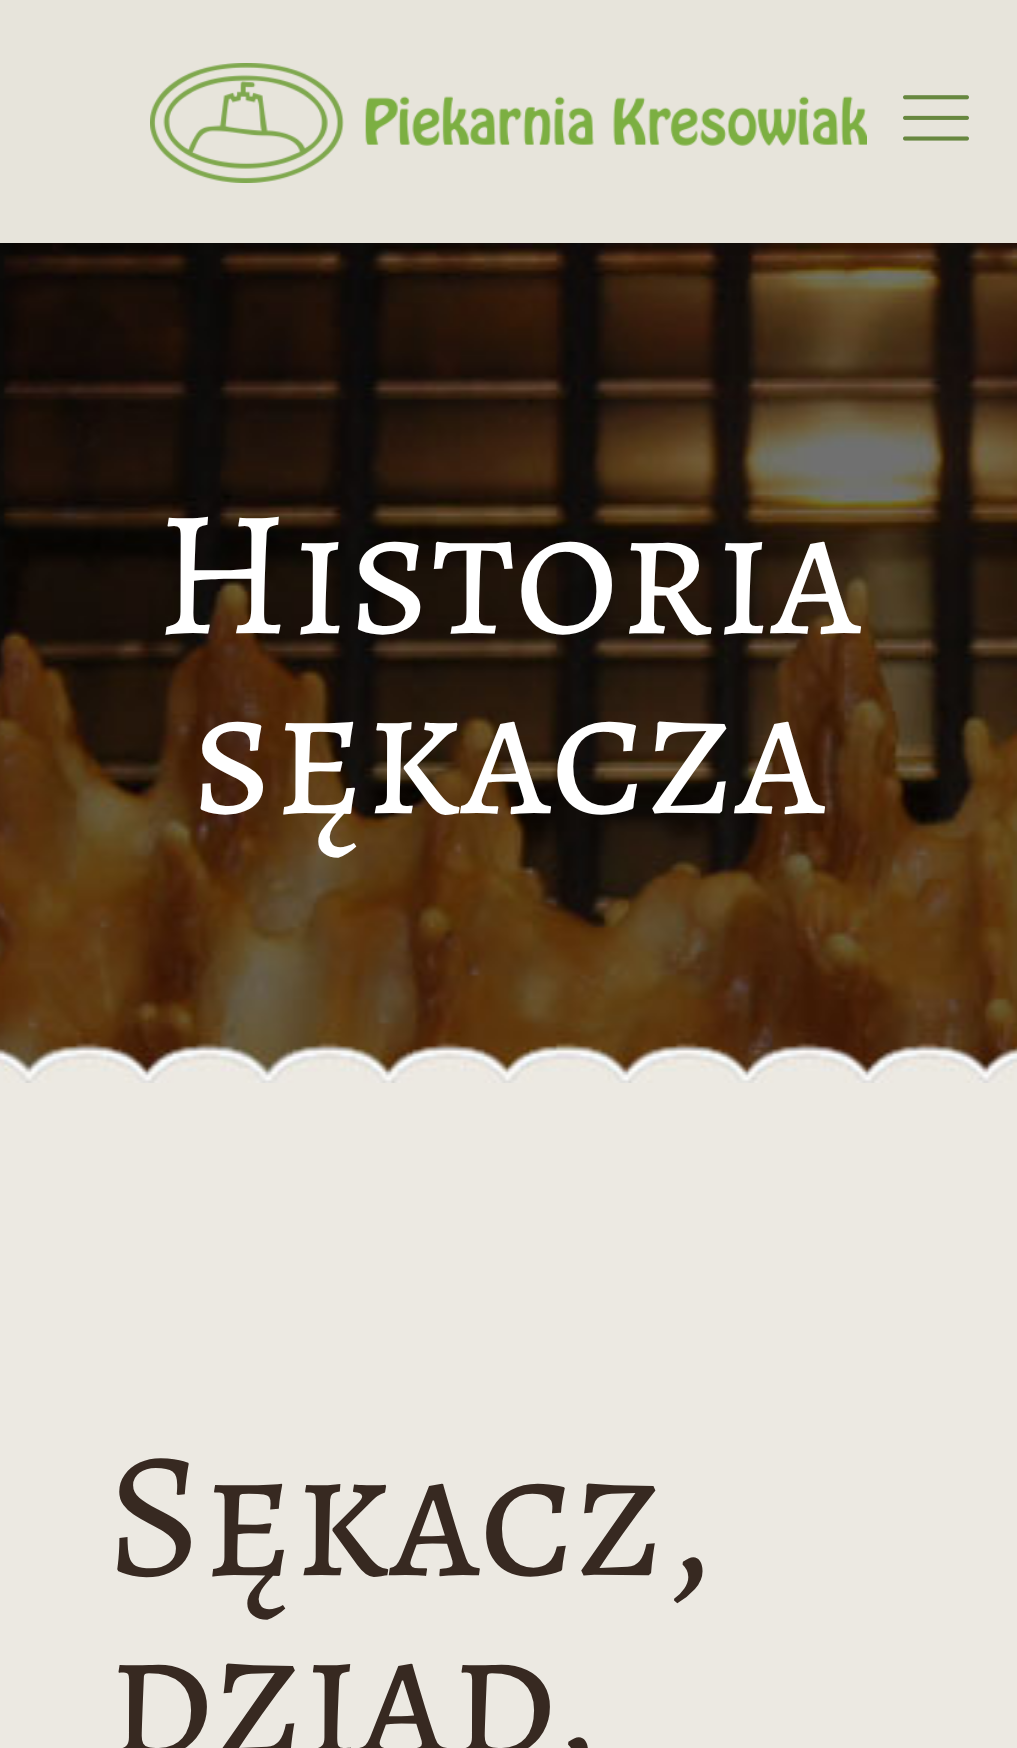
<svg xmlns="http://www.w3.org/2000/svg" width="1017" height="1748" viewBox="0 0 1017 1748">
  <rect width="100%" height="100%" fill="#ece9e2"/>
  <image x="0" y="243" width="1017" height="840" href="img/1.png"/>
  <path d="M0 0h1017v243H0z" fill="#e7e4db"/>
  <image x="150" y="63" width="717" height="120" href="img/2.png"/>
  <image x="903" y="95" width="66" height="46" href="img/3.png"/>
  <g font-family="Alegreya SC" font-size="180" fill="#fff">
    <text x="155" y="633">Historia</text>
    <text x="191" y="813">sękacza</text>
  </g>
  <g font-family="Alegreya SC" font-size="180" fill="#372921">
    <text x="107" y="1575">Sękacz,</text>
    <text x="107" y="1755">dziad,</text>
  </g>
</svg>
